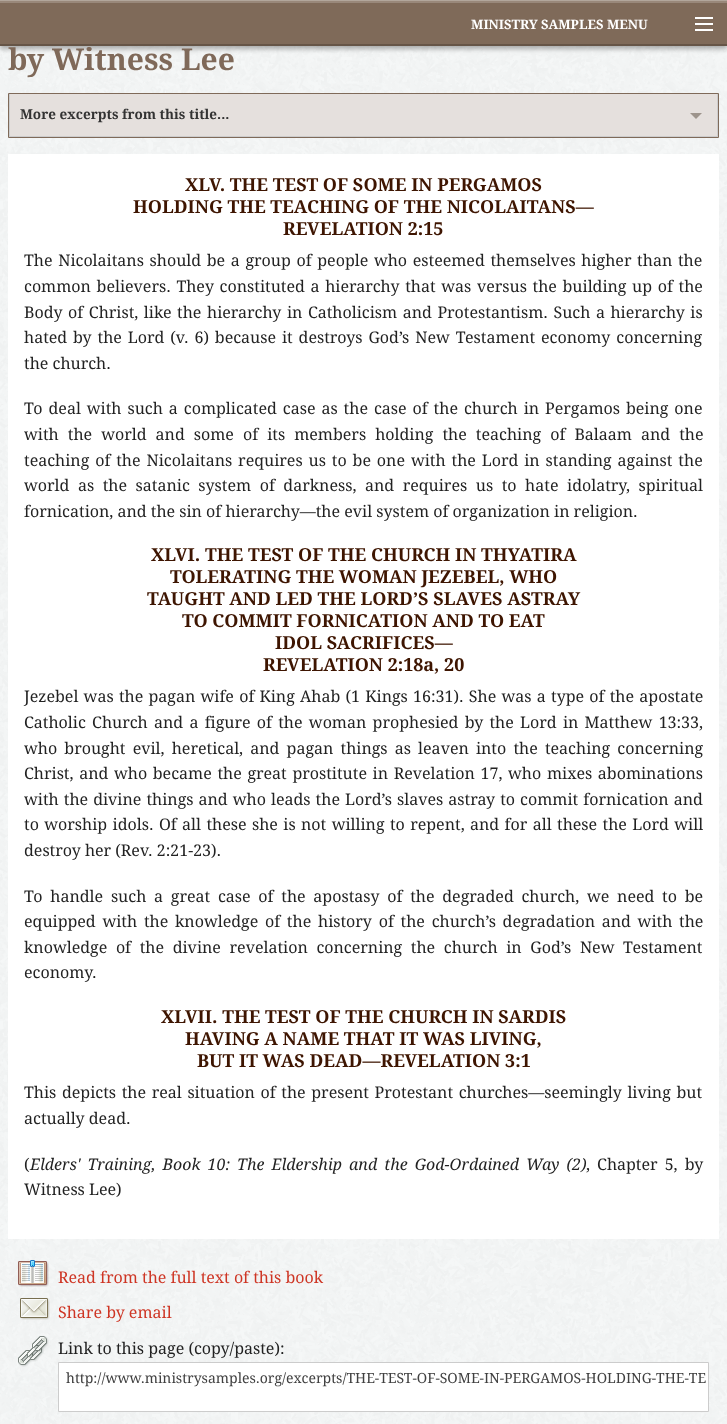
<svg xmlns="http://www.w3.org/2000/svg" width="727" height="1424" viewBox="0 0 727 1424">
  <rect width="100%" height="100%" fill="#fff"/>
  <image x="0" y="46" width="727" height="1378" href="img/1.png"/>
  <path d="M0 3h727v46H0z" fill="#0000004d" filter="blur(2.5px)"/>
  <path d="M0 0h727v1H0z" fill="#b2a69b"/>
  <path d="M0 3h727v41H0z" fill="#7f6a59"/>
  <path d="M0 44h727v2H0z" fill="#665547"/>
  <path d="M0 1h727v2H0z" fill="#99887a"/>
  <path d="M695 29h18v2H695z" fill="#fff"/>
  <path d="M695 23h18v2H695z" fill="#fff"/>
  <path d="M695 17h18v2H695z" fill="#fff"/>
  <path d="M8.5 93.5h710v44H8.5z" fill="none" stroke="#7f6a59"/>
  <path d="M10 94h707v42H10z" fill="#e5e0dd"/>
  <path d="M717 94h1v43H717z" fill="#ccc"/>
  <path d="M9 136h709v1H9z" fill="#ccc"/>
  <path d="M9 94h1v43H9z" fill="#ccc"/>
  <path d="M690 113H702L696 119Z" fill="#9d948c"/>
  <path d="M8 154h711v1085H8z" fill="#fff"/>
  <image x="18" y="1260" width="31" height="27" href="img/2.png"/>
  <image x="20" y="1298" width="30" height="22" href="img/3.png"/>
  <image x="18" y="1336" width="31" height="31" href="img/4.png"/>
  <path d="M58.5 1362.5h650v49H58.5z" fill="#fff" stroke="#ccc"/>
  <text x="471" y="29" font-family="Droid Serif" font-size="13" font-weight="bold" fill="#fff">MINISTRY SAMPLES MENU</text>
  <text x="8" y="70" font-family="Droid Serif" font-size="30" font-weight="bold" fill="#7f6959">by Witness Lee</text>
  <text x="20" y="119" font-family="Droid Serif" font-size="13.5" font-weight="bold" fill="#333">More excerpts from this title...</text>
  <g font-family="Droid Serif" font-size="18" font-weight="bold" fill="#3e1501">
    <text x="185" y="191">XLV. THE TEST OF SOME IN PERGAMOS</text>
    <text x="133" y="213">HOLDING THE TEACHING OF THE NICOLAITANS—</text>
    <text x="283" y="235">REVELATION 2:15</text>
  </g>
  <g font-family="Droid Serif" font-size="16" fill="#222">
    <text x="24" y="266" word-spacing="1.5">The Nicolaitans should be a group of people who esteemed themselves higher than the</text>
    <text x="24" y="292" word-spacing="1.5">common believers. They constituted a hierarchy that was versus the building up of the</text>
    <text x="24" y="318" word-spacing="1.4">Body of Christ, like the hierarchy in Catholicism and Protestantism. Such a hierarchy is</text>
    <text x="24" y="343" word-spacing="1.75">hated by the Lord (v. 6) because it destroys God’s New Testament economy concerning</text>
    <text x="24" y="369">the church.</text>
    <text x="24" y="414" word-spacing="1.8">To deal with such a complicated case as the case of the church in Pergamos being one</text>
    <text x="24" y="440" word-spacing="4.9">with the world and some of its members holding the teaching of Balaam and the</text>
    <text x="24" y="466" word-spacing="1.75">teaching of the Nicolaitans requires us to be one with the Lord in standing against the</text>
    <text x="24" y="491" word-spacing="4.4">world as the satanic system of darkness, and requires us to hate idolatry, spiritual</text>
    <text x="24" y="517">fornication, and the sin of hierarchy—the evil system of organization in religion.</text>
  </g>
  <g font-family="Droid Serif" font-size="18" font-weight="bold" fill="#3e1501">
    <text x="151" y="561">XLVI. THE TEST OF THE CHURCH IN THYATIRA</text>
    <text x="170" y="583">TOLERATING THE WOMAN JEZEBEL, WHO</text>
    <text x="147" y="605">TAUGHT AND LED THE LORD’S SLAVES ASTRAY</text>
    <text x="182" y="627">TO COMMIT FORNICATION AND TO EAT</text>
    <text x="275" y="649">IDOL SACRIFICES—</text>
    <text x="263" y="671">REVELATION 2:18a, 20</text>
  </g>
  <g font-family="Droid Serif" font-size="16" fill="#222">
    <text x="24" y="702" word-spacing="1.1">Jezebel was the pagan wife of King Ahab (1 Kings 16:31). She was a type of the apostate</text>
    <text x="24" y="728" word-spacing="2.1">Catholic Church and a figure of the woman prophesied by the Lord in Matthew 13:33,</text>
    <text x="24" y="754" word-spacing="3">who brought evil, heretical, and pagan things as leaven into the teaching concerning</text>
    <text x="24" y="779" word-spacing="1.5">Christ, and who became the great prostitute in Revelation 17, who mixes abominations</text>
    <text x="24" y="805" word-spacing="0.9">with the divine things and who leads the Lord’s slaves astray to commit fornication and</text>
    <text x="24" y="830" word-spacing="1.25">to worship idols. Of all these she is not willing to repent, and for all these the Lord will</text>
    <text x="24" y="856">destroy her (Rev. 2:21-23).</text>
    <text x="24" y="902" word-spacing="3.6">To handle such a great case of the apostasy of the degraded church, we need to be</text>
    <text x="24" y="927" word-spacing="2.6">equipped with the knowledge of the history of the church’s degradation and with the</text>
    <text x="24" y="953" word-spacing="4.5">knowledge of the divine revelation concerning the church in God’s New Testament</text>
    <text x="24" y="978">economy.</text>
  </g>
  <g font-family="Droid Serif" font-size="18" font-weight="bold" fill="#3e1501">
    <text x="161" y="1023">XLVII. THE TEST OF THE CHURCH IN SARDIS</text>
    <text x="185" y="1045">HAVING A NAME THAT IT WAS LIVING,</text>
    <text x="197" y="1067">BUT IT WAS DEAD—REVELATION 3:1</text>
  </g>
  <g font-family="Droid Serif" font-size="16" fill="#222">
    <text x="24" y="1098" word-spacing="1.5">This depicts the real situation of the present Protestant churches—seemingly living but</text>
    <text x="24" y="1124">actually dead.</text>
    <text x="24" y="1170">(</text>
  </g>
  <text x="30" y="1170" word-spacing="2.9" font-family="Droid Serif" font-size="16" font-style="italic" fill="#222">Elders' Training, Book 10: The Eldership and the God-Ordained Way (2)</text>
  <g font-family="Droid Serif" font-size="16" fill="#222">
    <text x="586" y="1170" word-spacing="2.9">, Chapter 5, by</text>
    <text x="24" y="1195">Witness Lee)</text>
  </g>
  <g font-family="Droid Serif" font-size="16" fill="#ce3524">
    <text x="58" y="1283">Read from the full text of this book</text>
    <text x="58" y="1318">Share by email</text>
  </g>
  <text x="58" y="1354" font-family="Droid Serif" font-size="16" fill="#222">Link to this page (copy/paste):</text>
  <text x="66" y="1383" font-family="Droid Serif" font-size="14" fill="#404040">http://www.ministrysamples.org/excerpts/THE-TEST-OF-SOME-IN-PERGAMOS-HOLDING-THE-TE</text>
</svg>
